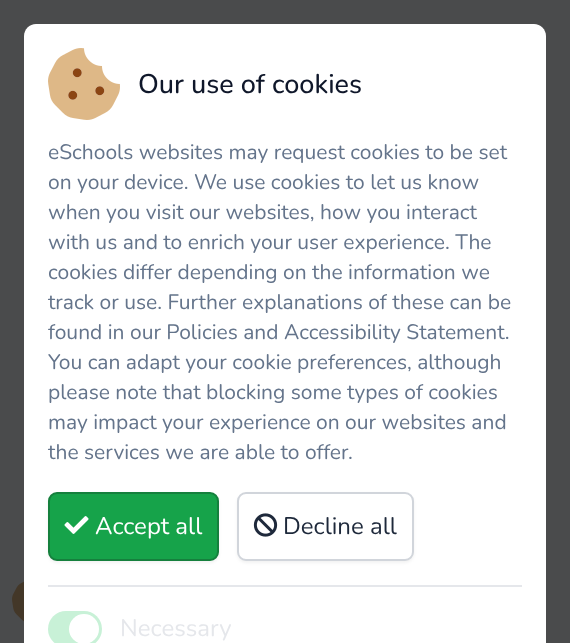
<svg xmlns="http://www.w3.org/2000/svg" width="570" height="643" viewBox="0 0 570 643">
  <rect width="100%" height="100%" fill="#4a4b4c"/>
  <image x="12" y="581" width="12" height="41" href="img/1.png"/>
  <path d="M36 24H534C540.5 24 546 29.5 546 36V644H24V36C24 29.5 29.5 24 36 24Z" fill="#fff"/>
  <image x="48" y="48" width="72" height="72" href="img/2.png"/>
  <image x="68" y="68" width="37" height="32" href="img/3.png"/>
  <rect x="48" y="494" width="171" height="69" rx="9" fill="#0000000d" filter="blur(1.5px)"/>
  <rect x="49" y="493" width="169" height="67" rx="8" fill="#16a34a" stroke="#15803d" stroke-width="2"/>
  <image x="64" y="516" width="25" height="18" href="img/4.png"/>
  <rect x="237" y="494" width="177" height="69" rx="9" fill="#0000000d" filter="blur(1.5px)"/>
  <rect x="238" y="493" width="175" height="67" rx="8" fill="#fff" stroke="#d1d5db" stroke-width="2"/>
  <image x="253" y="513" width="25" height="24" href="img/5.png"/>
  <path d="M48 585h474v2H48z" fill="#e5e7eb"/>
  <rect x="48" y="611" width="54" height="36" rx="18" fill="#c8f1d7"/>
  <circle cx="84" cy="629" r="15" fill="#fff"/>
  <text x="138" y="93" font-family="Nunito" font-size="27" font-weight="500" fill="#0f172a">Our use of cookies</text>
  <g font-family="Nunito" font-size="21" fill="#64748b">
    <text x="48" y="159">eSchools websites may request cookies to be set</text>
    <text x="48" y="189">on your device. We use cookies to let us know</text>
    <text x="48" y="219">when you visit our websites, how you interact</text>
    <text x="48" y="249">with us and to enrich your user experience. The</text>
    <text x="48" y="279">cookies differ depending on the information we</text>
    <text x="48" y="309">track or use. Further explanations of these can be</text>
    <text x="48" y="339">found in our Policies and Accessibility Statement.</text>
    <text x="48" y="369">You can adapt your cookie preferences, although</text>
    <text x="48" y="399">please note that blocking some types of cookies</text>
    <text x="48" y="429">may impact your experience on our websites and</text>
    <text x="48" y="459">the services we are able to offer.</text>
  </g>
  <text x="95" y="534" font-family="Nunito" font-size="24" fill="#fff">Accept all</text>
  <text x="283" y="534" font-family="Nunito" font-size="24" fill="#1e293b">Decline all</text>
  <text x="120" y="636" font-family="Nunito" font-size="24" fill="#e5e7eb">Necessary</text>
</svg>
